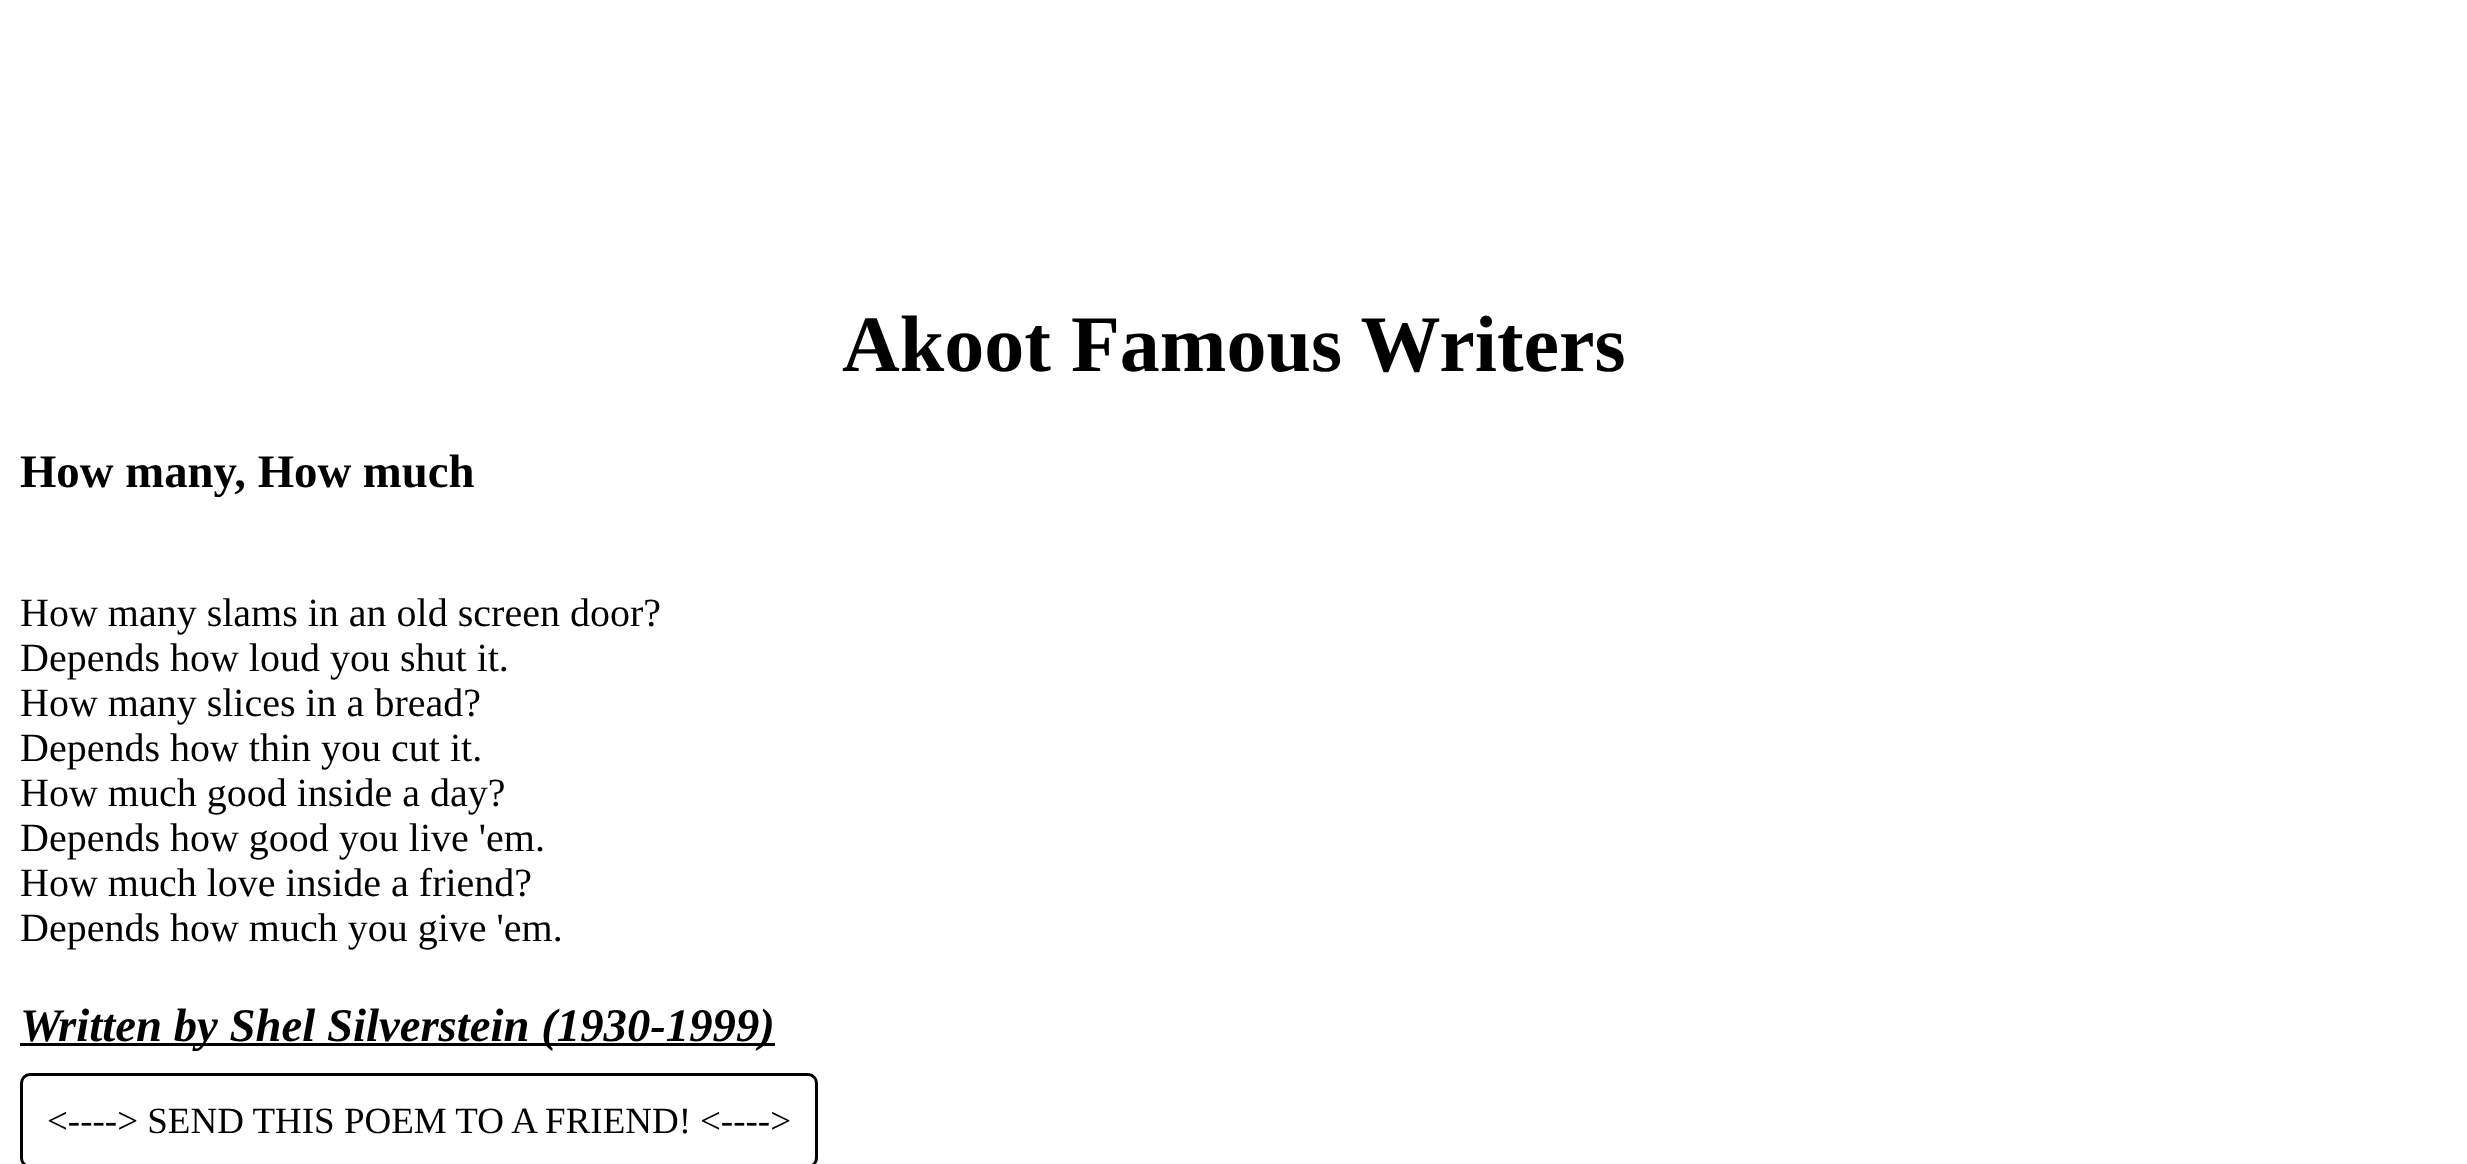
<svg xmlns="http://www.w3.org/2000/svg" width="2467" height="1164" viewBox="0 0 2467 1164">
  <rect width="100%" height="100%" fill="#fff"/>
  <path d="M20 1043h755v3H20z" fill="#000"/>
  <rect x="21.5" y="1074.5" width="795" height="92" rx="8.5" fill="none" stroke="#000" stroke-width="3"/>
  <text x="842" y="371" font-family="Liberation Serif" font-size="80" font-weight="bold" fill="#000">Akoot Famous Writers</text>
  <text x="20" y="487" font-family="Liberation Serif" font-size="46.75" font-weight="bold" fill="#000">How many, How much</text>
  <g font-family="Liberation Serif" font-size="40" fill="#000">
    <text x="20" y="626">How many slams in an old screen door?</text>
    <text x="20" y="671">Depends how loud you shut it.</text>
    <text x="20" y="716">How many slices in a bread?</text>
    <text x="20" y="761">Depends how thin you cut it.</text>
    <text x="20" y="806">How much good inside a day?</text>
    <text x="20" y="851">Depends how good you live 'em.</text>
    <text x="20" y="896">How much love inside a friend?</text>
    <text x="20" y="941">Depends how much you give 'em.</text>
  </g>
  <text x="20" y="1041" font-family="Liberation Serif" font-size="46.75" font-weight="bold" font-style="italic" fill="#000">Written by Shel Silverstein (1930-1999)</text>
  <g font-family="Liberation Serif" font-size="37" fill="#000">
    <text x="47" y="1133">&lt;----&gt; SEND THIS POEM TO A FRIEND!</text>
    <text x="700" y="1133">&lt;----&gt;</text>
  </g>
</svg>
